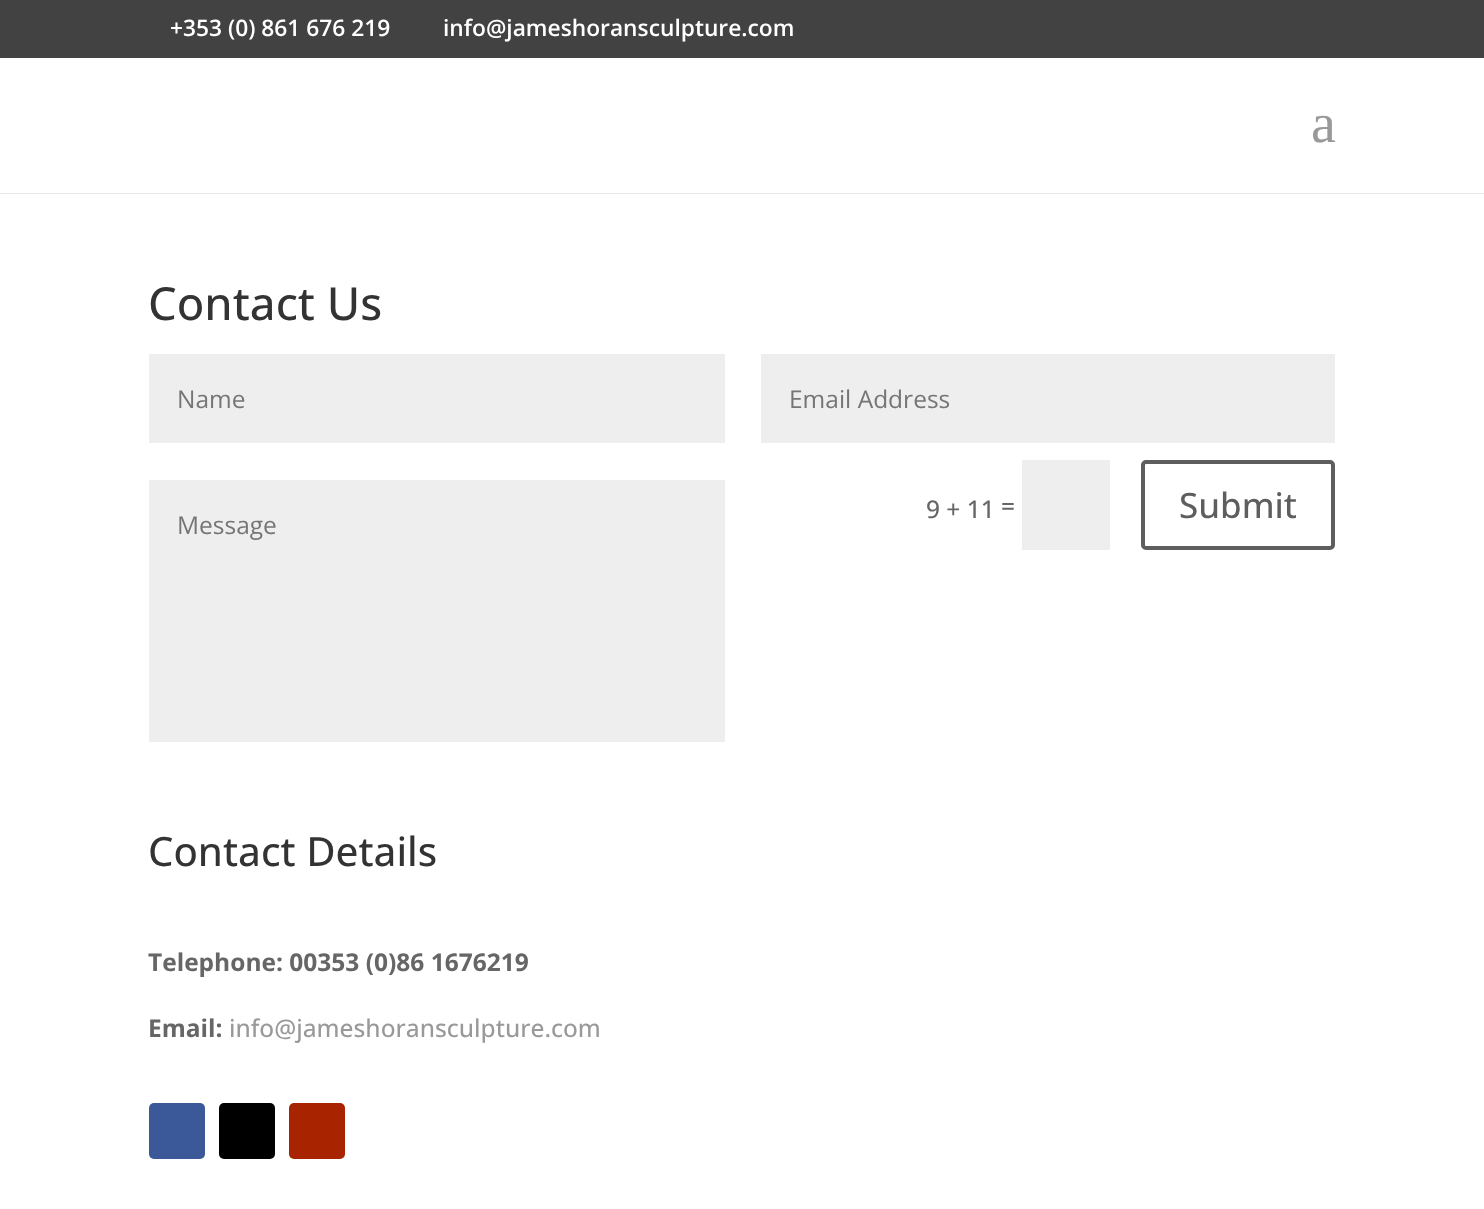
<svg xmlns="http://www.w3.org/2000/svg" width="1484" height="1209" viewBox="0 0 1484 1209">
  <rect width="100%" height="100%" fill="#fff"/>
  <path d="M0 0h1484v58H0z" fill="#424242"/>
  <path d="M0 193h1484v1H0z" fill="#e6e6e6"/>
  <path d="M149 354h576v89H149z" fill="#eee"/>
  <path d="M761 354h574v89H761z" fill="#eee"/>
  <path d="M1022 460h88v90H1022z" fill="#eee"/>
  <rect x="1143" y="462" width="190" height="86" rx="3" fill="none" stroke="#5e5e5e" stroke-width="4"/>
  <path d="M149 480h576v262H149z" fill="#eee"/>
  <rect x="149" y="1103" width="56" height="56" rx="5" fill="#3b5998"/>
  <rect x="219" y="1103" width="56" height="56" rx="5" fill="#000"/>
  <rect x="289" y="1103" width="56" height="56" rx="5" fill="#a82400"/>
  <g font-family="Open Sans" font-size="22.75" font-weight="600" fill="#fff">
    <text x="170" y="36">+353 (0) 861 676 219</text>
    <text x="443" y="36">info@jameshoransculpture.com</text>
  </g>
  <text x="1311" y="142" font-family="Liberation Serif" font-size="56" fill="#999">a</text>
  <text x="148" y="320" font-family="Open Sans" font-size="45.5" font-weight="500" fill="#333">Contact Us</text>
  <g font-family="Open Sans" font-size="24.5" fill="#757575">
    <text x="177" y="408">Name</text>
    <text x="789" y="408">Email Address</text>
  </g>
  <g font-family="Open Sans" font-size="24.5" font-weight="500" fill="#666">
    <text x="926" y="518">9 + 11</text>
    <text x="1001" y="515">=</text>
  </g>
  <text x="1179" y="518" font-family="Open Sans" font-size="35" font-weight="500" fill="#5e5e5e">Submit</text>
  <text x="177" y="534" font-family="Open Sans" font-size="24.5" fill="#757575">Message</text>
  <text x="148" y="866" font-family="Open Sans" font-size="40.25" font-weight="500" fill="#333">Contact Details</text>
  <g font-family="Open Sans" font-size="24.5" font-weight="bold" fill="#666">
    <text x="148" y="971">Telephone: 00353 (0)86 1676219</text>
    <text x="148" y="1037">Email:</text>
  </g>
  <text x="229" y="1037" font-family="Open Sans" font-size="24.5" font-weight="500" fill="#999">info@jameshoransculpture.com</text>
</svg>
